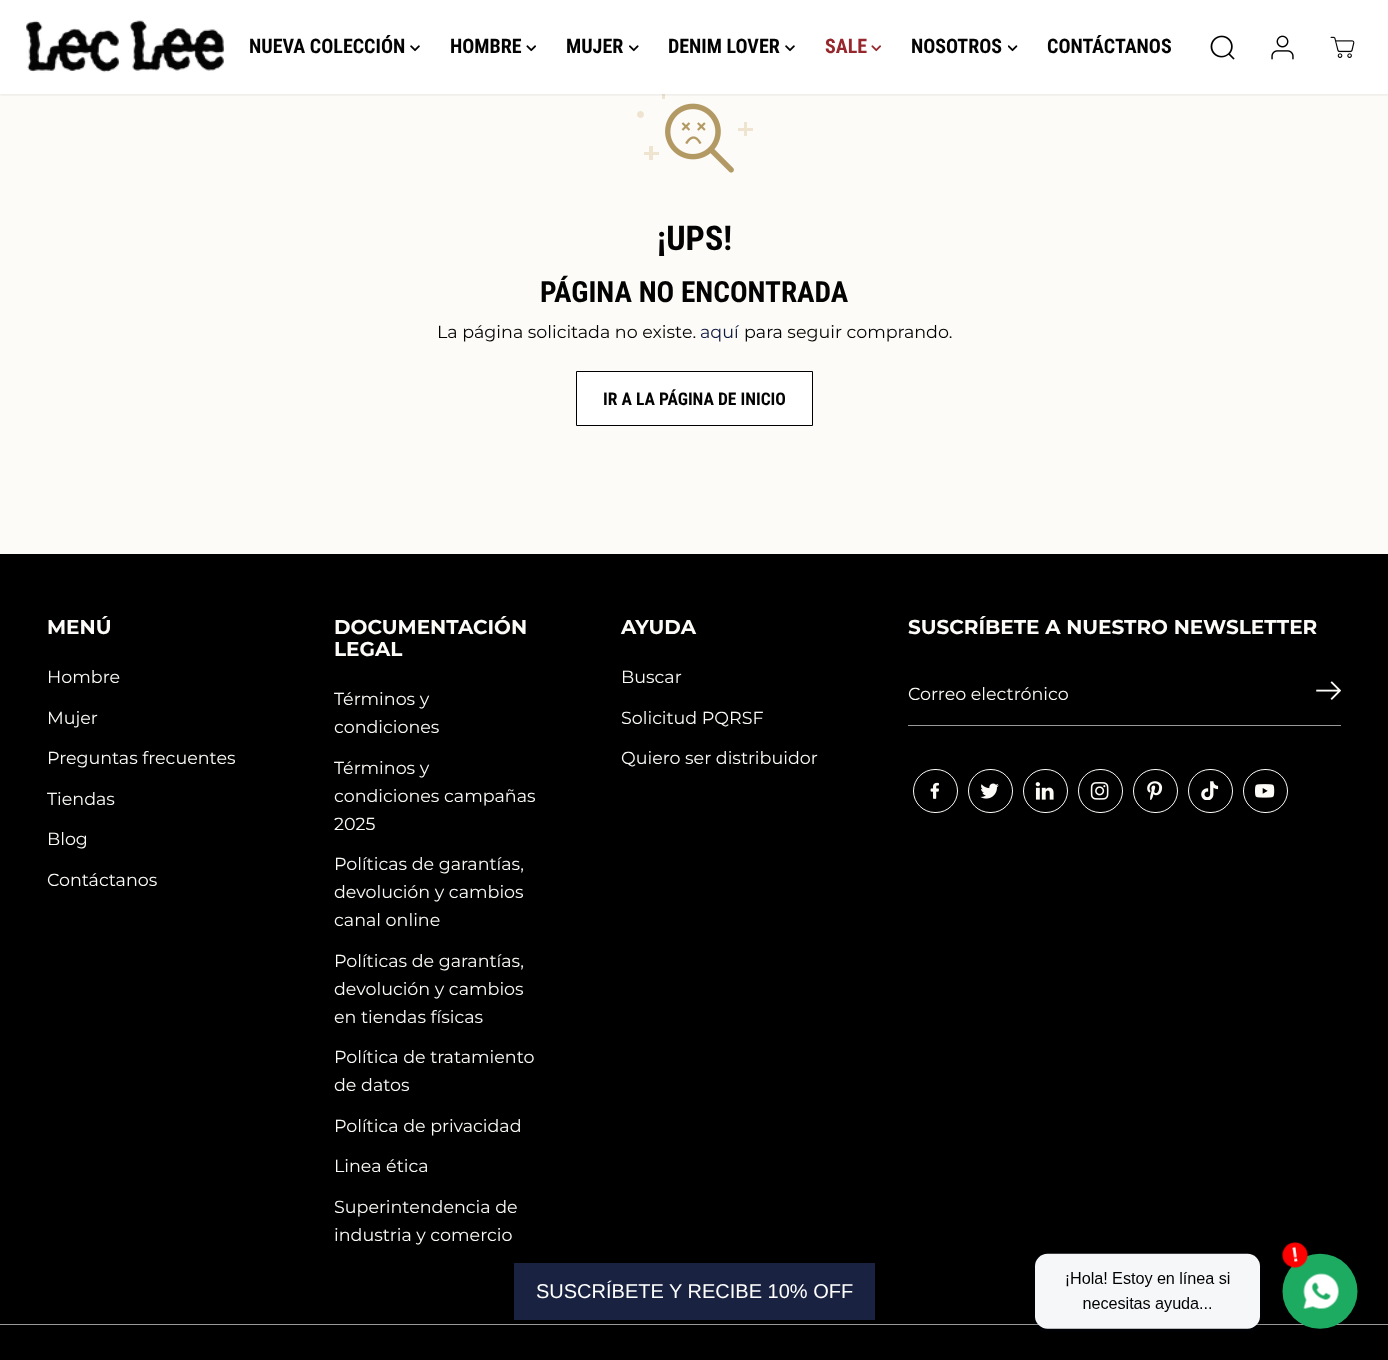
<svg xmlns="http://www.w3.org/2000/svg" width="1388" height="1360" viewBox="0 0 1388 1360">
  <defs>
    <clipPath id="clip1"><path d="M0 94h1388v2H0z"/></clipPath>
  </defs>
  <rect width="100%" height="100%" fill="#fcfbf7"/>
  <path d="M0 0h1388v94H0z" fill="#fff"/>
  <image x="637" y="94" width="116" height="79" href="img/10.png"/>
  <g clip-path="url(#clip1)">
    <path d="M0 3h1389v93H0z" fill="#0000000d" filter="blur(1px)"/>
  </g>
  <image x="26" y="20" width="199" height="53" href="img/1.png"/>
  <image x="410" y="45" width="10" height="7" href="img/2.png"/>
  <image x="526" y="45" width="10" height="7" href="img/3.png"/>
  <image x="629" y="45" width="10" height="7" href="img/4.png"/>
  <image x="785" y="45" width="10" height="7" href="img/2.png"/>
  <image x="871" y="45" width="10" height="7" href="img/5.png"/>
  <image x="1008" y="45" width="10" height="7" href="img/6.png"/>
  <image x="1210" y="35" width="25" height="25" href="img/7.png"/>
  <image x="1271" y="35" width="23" height="25" href="img/8.png"/>
  <image x="1330" y="36" width="25" height="22" href="img/9.png"/>
  <path d="M576.5 371.5h236v54H576.5z" fill="#fff" stroke="#000"/>
  <path d="M0 554h1388v806H0z" fill="#000"/>
  <path d="M908 725h433v1H908z" fill="#999"/>
  <image x="1316" y="681" width="25" height="19" href="img/11.png"/>
  <rect x="913.5" y="769.5" width="44" height="43" rx="21.5" fill="none" stroke="#fcfbf7"/>
  <image x="930" y="782" width="9" height="17" href="img/12.png"/>
  <rect x="968.5" y="769.5" width="44" height="43" rx="21.5" fill="none" stroke="#fcfbf7"/>
  <image x="980" y="783" width="19" height="16" href="img/13.png"/>
  <rect x="1023.5" y="769.5" width="44" height="43" rx="21.5" fill="none" stroke="#fcfbf7"/>
  <image x="1035" y="782" width="19" height="18" href="img/14.png"/>
  <rect x="1078.5" y="769.5" width="44" height="43" rx="21.5" fill="none" stroke="#fcfbf7"/>
  <image x="1090" y="782" width="19" height="18" href="img/15.png"/>
  <rect x="1133.5" y="769.5" width="44" height="43" rx="21.5" fill="none" stroke="#fcfbf7"/>
  <image x="1147" y="781" width="16" height="19" href="img/16.png"/>
  <rect x="1188.5" y="769.5" width="44" height="43" rx="21.5" fill="none" stroke="#fcfbf7"/>
  <image x="1201" y="781" width="18" height="19" href="img/17.png"/>
  <rect x="1243.5" y="769.5" width="44" height="43" rx="21.5" fill="none" stroke="#fcfbf7"/>
  <image x="1255" y="784" width="20" height="14" href="img/18.png"/>
  <path d="M0 1324h1388v1H0z" fill="#999"/>
  <path d="M514 1263h361v57H514z" fill="#192240"/>
  <image x="1034" y="1242" width="324" height="90" href="img/19.png"/>
  <g font-family="Roboto Condensed" font-size="20" font-weight="bold" fill="#030303">
    <text x="249" y="53">NUEVA COLECCIÓN</text>
    <text x="450" y="53">HOMBRE</text>
    <text x="566" y="53">MUJER</text>
    <text x="668" y="53">DENIM LOVER</text>
  </g>
  <text x="825" y="53" font-family="Roboto Condensed" font-size="20" font-weight="bold" fill="#95272d">SALE</text>
  <g font-family="Roboto Condensed" font-size="20" font-weight="bold" fill="#030303">
    <text x="911" y="53">NOSOTROS</text>
    <text x="1047" y="53">CONTÁCTANOS</text>
  </g>
  <text x="657" y="250" font-family="Roboto Condensed" font-size="34" font-weight="bold" fill="#030303">¡UPS!</text>
  <text x="540" y="302" font-family="Roboto Condensed" font-size="29.25" font-weight="bold" fill="#030303">PÁGINA NO ENCONTRADA</text>
  <text x="437" y="338" font-family="Montserrat" font-size="17.5" fill="#030303">La página solicitada no existe.</text>
  <text x="700" y="338" font-family="Montserrat" font-size="17.5" fill="#0e1943">aquí</text>
  <text x="744" y="338" font-family="Montserrat" font-size="17.5" fill="#030303">para seguir comprando.</text>
  <text x="603" y="405" font-family="Roboto Condensed" font-size="17.5" font-weight="bold" fill="#030303">IR A LA PÁGINA DE INICIO</text>
  <text x="47" y="634" font-family="Montserrat" font-size="20" font-weight="bold" fill="#fcfbf7">MENÚ</text>
  <g font-family="Montserrat" font-size="17.5" fill="#fcfbf7">
    <text x="47" y="683">Hombre</text>
    <text x="47" y="724">Mujer</text>
    <text x="47" y="764">Preguntas frecuentes</text>
    <text x="47" y="805">Tiendas</text>
    <text x="47" y="845">Blog</text>
    <text x="47" y="886">Contáctanos</text>
  </g>
  <g font-family="Montserrat" font-size="20" font-weight="bold" fill="#fcfbf7">
    <text x="334" y="634">DOCUMENTACIÓN</text>
    <text x="334" y="656">LEGAL</text>
  </g>
  <g font-family="Montserrat" font-size="17.5" fill="#fcfbf7">
    <text x="334" y="705">Términos y</text>
    <text x="334" y="733">condiciones</text>
    <text x="334" y="774">Términos y</text>
    <text x="334" y="802">condiciones campañas</text>
    <text x="334" y="830">2025</text>
    <text x="334" y="870">Políticas de garantías,</text>
    <text x="334" y="898">devolución y cambios</text>
    <text x="334" y="926">canal online</text>
    <text x="334" y="967">Políticas de garantías,</text>
    <text x="334" y="995">devolución y cambios</text>
    <text x="334" y="1023">en tiendas físicas</text>
    <text x="334" y="1063">Política de tratamiento</text>
    <text x="334" y="1091">de datos</text>
    <text x="334" y="1132">Política de privacidad</text>
    <text x="334" y="1172">Linea ética</text>
    <text x="334" y="1213">Superintendencia de</text>
    <text x="334" y="1241">industria y comercio</text>
  </g>
  <text x="621" y="634" font-family="Montserrat" font-size="20" font-weight="bold" fill="#fcfbf7">AYUDA</text>
  <g font-family="Montserrat" font-size="17.5" fill="#fcfbf7">
    <text x="621" y="683">Buscar</text>
    <text x="621" y="724">Solicitud PQRSF</text>
    <text x="621" y="764">Quiero ser distribuidor</text>
  </g>
  <text x="908" y="634" font-family="Montserrat" font-size="20" font-weight="bold" fill="#fcfbf7">SUSCRÍBETE A NUESTRO NEWSLETTER</text>
  <text x="908" y="700" font-family="Montserrat" font-size="17.5" fill="#fcfbf7">Correo electrónico</text>
  <text x="536" y="1298" font-family="Liberation Sans" font-size="20" fill="#fff">SUSCRÍBETE Y RECIBE 10% OFF</text>
</svg>
